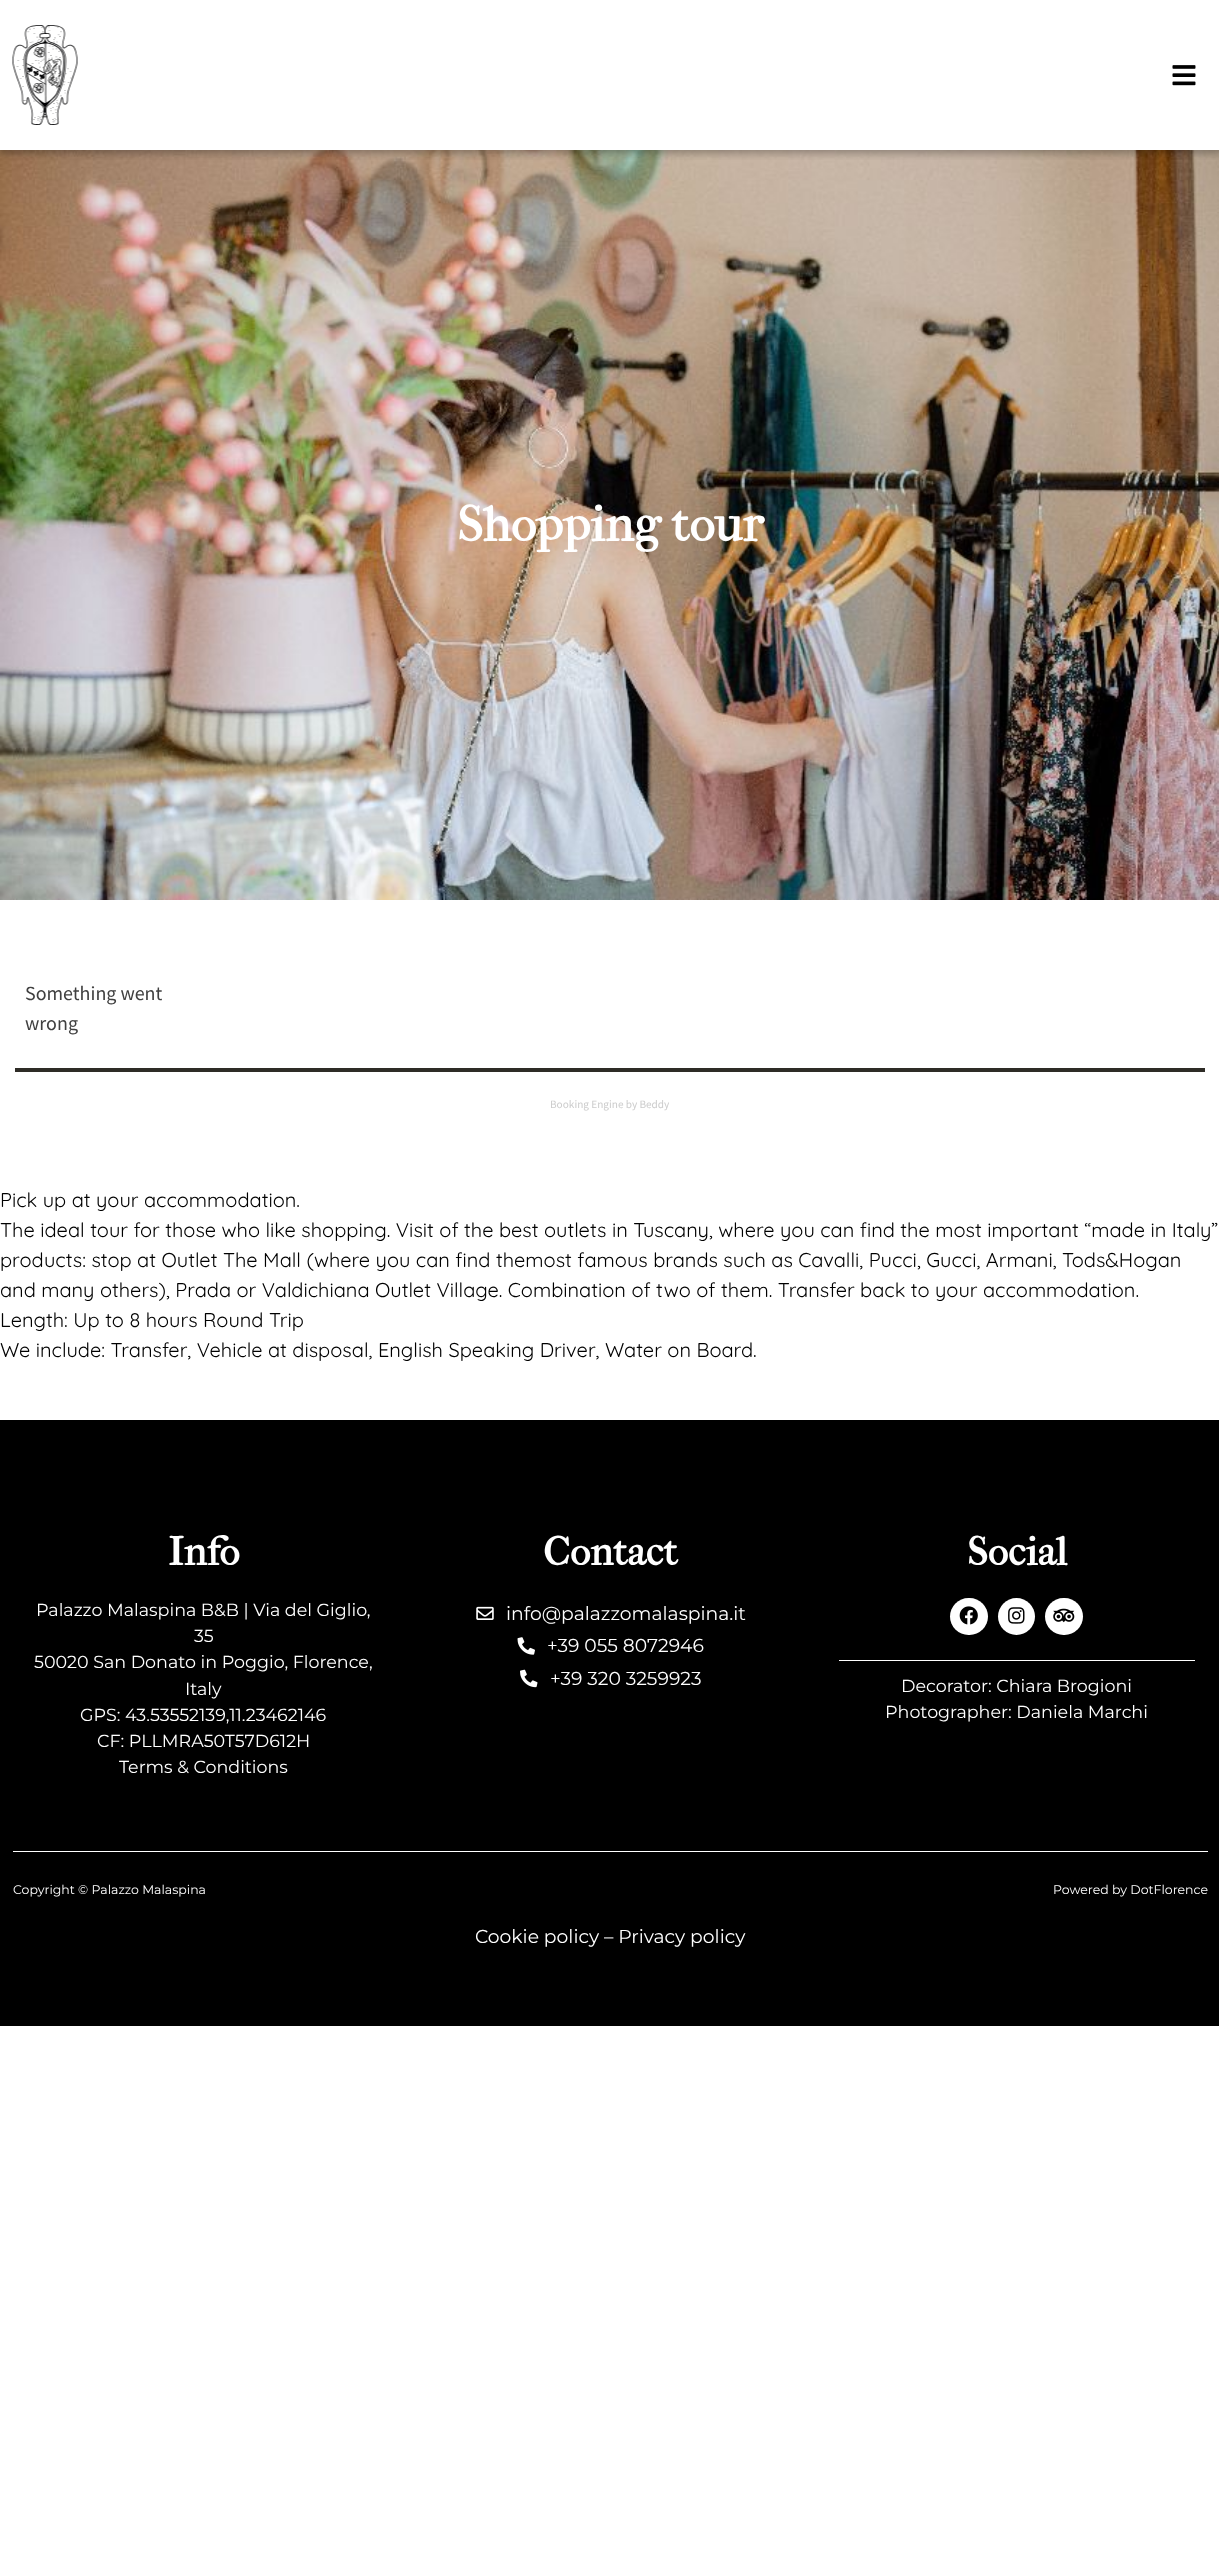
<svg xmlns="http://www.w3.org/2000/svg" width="1219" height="2562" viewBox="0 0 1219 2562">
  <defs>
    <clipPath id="clip1"><path d="M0 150h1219v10H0z"/></clipPath>
  </defs>
  <rect width="100%" height="100%" fill="#fff"/>
  <image x="0" y="150" width="1219" height="750" href="img/3.png"/>
  <g clip-path="url(#clip1)">
    <path d="M-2 -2h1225v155H-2z" fill="#0000004d" filter="blur(4.5px)"/>
  </g>
  <image x="12" y="25" width="66" height="100" href="img/1.png"/>
  <image x="1172" y="65" width="24" height="21" href="img/2.png"/>
  <path d="M15 1068h1190v4H15z" fill="#2e2c26"/>
  <path d="M0 1420h1219v606H0z" fill="#000"/>
  <image x="476" y="1606" width="18" height="14" href="img/4.png"/>
  <image x="517" y="1637" width="18" height="18" href="img/5.png"/>
  <image x="520" y="1669" width="18" height="19" href="img/6.png"/>
  <rect x="950" y="1598" width="38" height="37" rx="18.5" fill="#fff"/>
  <image x="959" y="1606" width="19" height="19" href="img/7.png"/>
  <circle cx="1016.5" cy="1616.5" r="18.5" fill="#fff"/>
  <image x="1008" y="1607" width="17" height="17" href="img/8.png"/>
  <rect x="1045" y="1598" width="38" height="37" rx="18.5" fill="#fff"/>
  <image x="1053" y="1608" width="22" height="15" href="img/9.png"/>
  <path d="M839 1660h356v1H839z" fill="#fff"/>
  <path d="M13 1851h1195v1H13z" fill="#fff"/>
  <text x="457" y="541" font-family="IM FELL French Canon" font-size="50" font-weight="bold" fill="#fff">Shopping tour</text>
  <g font-family="Source Sans Pro" font-size="20" fill="#404040">
    <text x="25" y="1000">Something went</text>
    <text x="25" y="1030">wrong</text>
  </g>
  <text x="550" y="1108" font-family="Source Sans Pro" font-size="11.25" fill="#ccc">Booking Engine by Beddy</text>
  <g font-family="Quicksand" font-size="20" fill="#000">
    <text x="0" y="1207">Pick up at your accommodation.</text>
    <text x="0" y="1237">The ideal tour for those who like shopping. Visit of the best outlets in Tuscany, where you can find the most important “made in Italy”</text>
    <text x="0" y="1267">products: stop at Outlet The Mall (where you can find themost famous brands such as Cavalli, Pucci, Gucci, Armani, Tods&amp;Hogan</text>
    <text x="0" y="1297">and many others), Prada or Valdichiana Outlet Village. Combination of two of them. Transfer back to your accommodation.</text>
    <text x="0" y="1327">Length: Up to 8 hours Round Trip</text>
    <text x="0" y="1357">We include: Transfer, Vehicle at disposal, English Speaking Driver, Water on Board.</text>
  </g>
  <text x="168" y="1565" font-family="IM FELL French Canon" font-size="40" font-weight="bold" fill="#fff">Info</text>
  <g font-family="Montserrat" font-size="17.5" fill="#fff">
    <text x="36" y="1616">Palazzo Malaspina B&amp;B | Via del Giglio,</text>
    <text x="194" y="1642">35</text>
    <text x="34" y="1668">50020 San Donato in Poggio, Florence,</text>
    <text x="185" y="1695">Italy</text>
    <text x="80" y="1721">GPS: 43.53552139,11.23462146</text>
    <text x="97" y="1747">CF: PLLMRA50T57D612H</text>
    <text x="119" y="1773">Terms &amp; Conditions</text>
  </g>
  <text x="543" y="1565" font-family="IM FELL French Canon" font-size="40" font-weight="bold" fill="#fff">Contact</text>
  <g font-family="Montserrat" font-size="18.75" fill="#fff">
    <text x="506" y="1620">info@palazzomalaspina.it</text>
    <text x="547" y="1652">+39 055 8072946</text>
    <text x="550" y="1685">+39 320 3259923</text>
  </g>
  <text x="967" y="1565" font-family="IM FELL French Canon" font-size="40" font-weight="bold" fill="#fff">Social</text>
  <g font-family="Montserrat" font-size="17.5" fill="#fff">
    <text x="901" y="1692">Decorator: Chiara Brogioni</text>
    <text x="885" y="1718">Photographer: Daniela Marchi</text>
  </g>
  <g font-family="Montserrat" font-size="12.5" fill="#fff">
    <text x="13" y="1894">Copyright © Palazzo Malaspina</text>
    <text x="1053" y="1894">Powered by DotFlorence</text>
  </g>
  <text x="475" y="1943" font-family="Montserrat" font-size="18.75" fill="#fff">Cookie policy – Privacy policy</text>
</svg>
